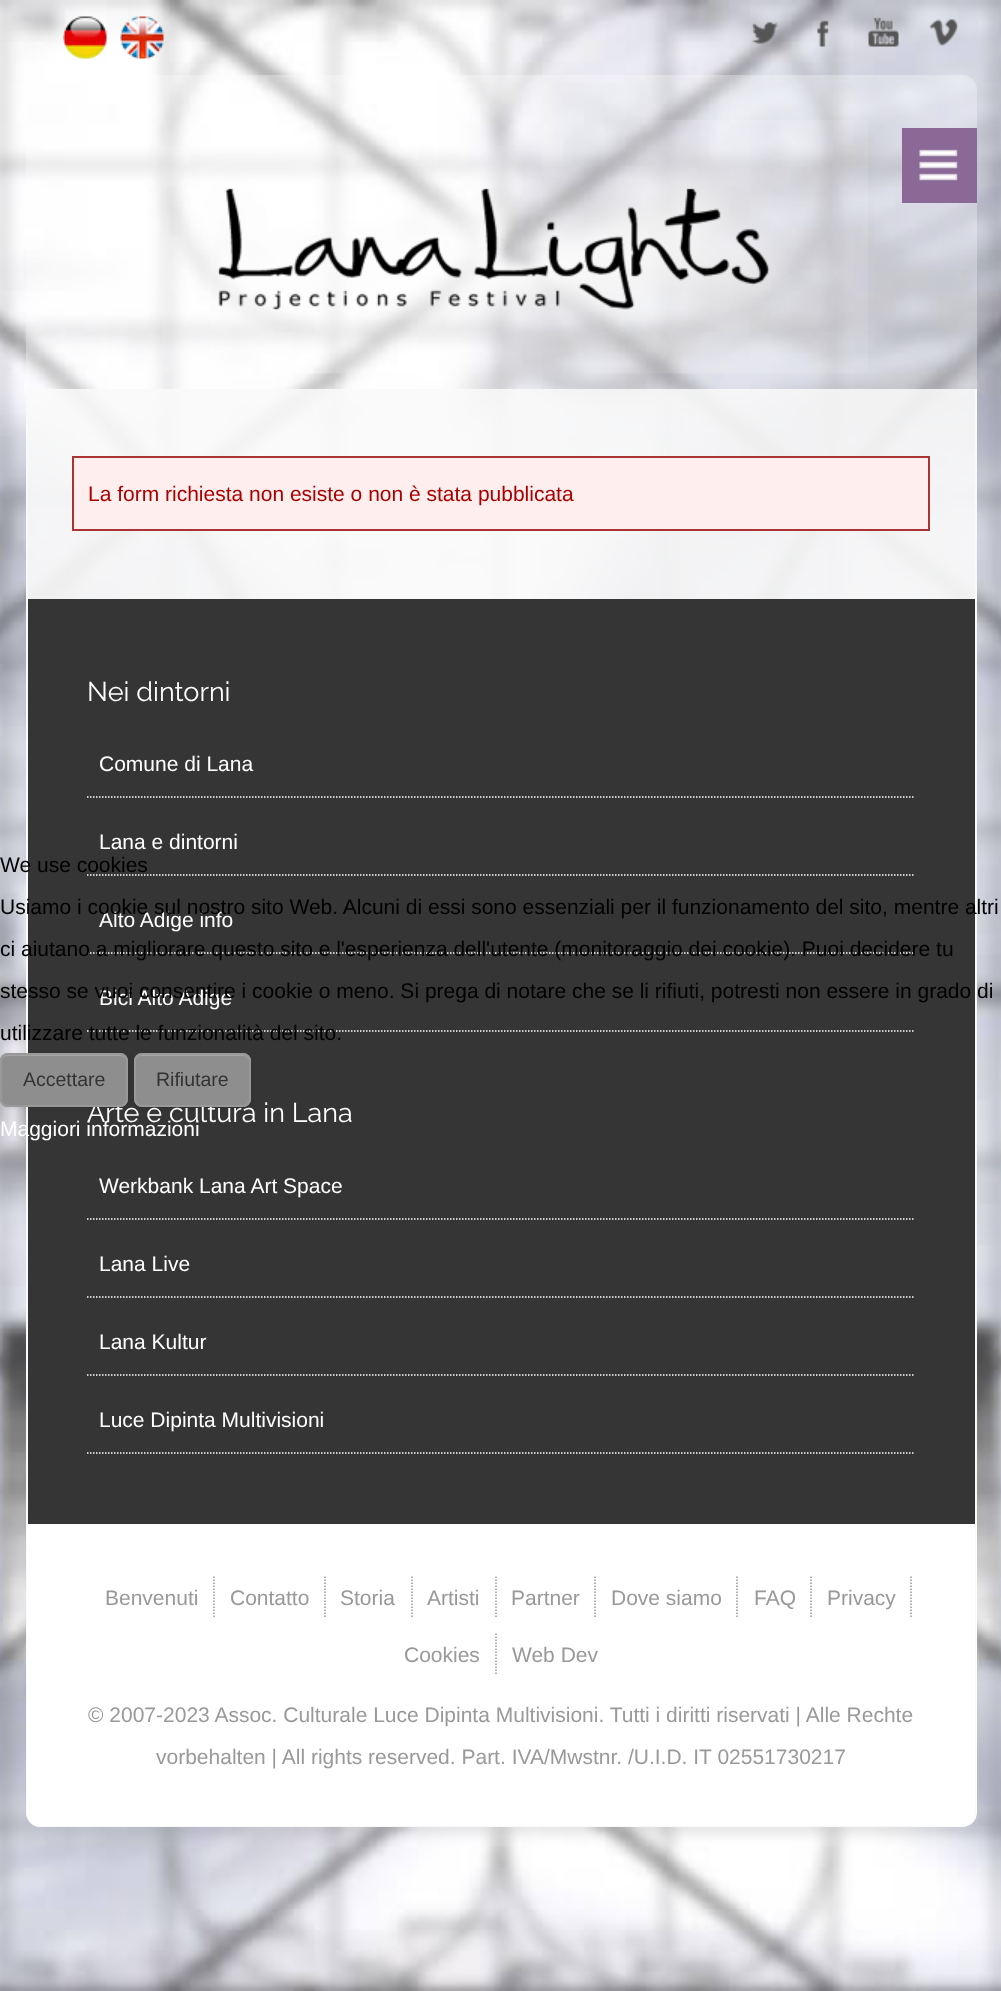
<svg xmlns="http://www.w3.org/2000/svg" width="1001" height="1991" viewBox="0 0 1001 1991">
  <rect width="100%" height="100%" fill="#fff"/>
  <image x="0" y="0" width="1001" height="1991" href="img/1.png"/>
  <path d="M41 75H962C970.5 75 977 81.5 977 90V389H26V90C26 81.5 32.5 75 41 75Z" fill="#ffffff4d"/>
  <image x="63" y="16" width="44" height="43" href="img/2.png"/>
  <image x="120" y="16" width="44" height="43" href="img/3.png"/>
  <image x="163" y="120" width="705" height="254" href="img/4.png"/>
  <path d="M902 128h75v75H902z" fill="#8b6996"/>
  <image x="919" y="149" width="39" height="32" href="img/5.png"/>
  <image x="751" y="22" width="28" height="22" href="img/6.png"/>
  <image x="817" y="20" width="12" height="27" href="img/7.png"/>
  <image x="868" y="17" width="31" height="30" href="img/8.png"/>
  <image x="929" y="19" width="29" height="27" href="img/9.png"/>
  <path d="M28 389h947v210H28z" fill="#fafafae6"/>
  <path d="M975 389h2v1135H975z" fill="#f8f9f9"/>
  <path d="M26 389h2v1135H26z" fill="#f8f9f9"/>
  <path d="M73 457h856v73H73z" fill="#fee" stroke="#a33" stroke-width="2"/>
  <path d="M28 599h947v925H28z" fill="#353535"/>
  <path d="M87 797H915" fill="none" stroke="#fff" stroke-width="1.5" stroke-dasharray="1.5 1.5"/>
  <path d="M87 875H915" fill="none" stroke="#fff" stroke-width="1.5" stroke-dasharray="1.5 1.5"/>
  <path d="M87 953H915" fill="none" stroke="#fff" stroke-width="1.5" stroke-dasharray="1.5 1.5"/>
  <path d="M87 1031H915" fill="none" stroke="#fff" stroke-width="1.5" stroke-dasharray="1.5 1.5"/>
  <path d="M87 1219H915" fill="none" stroke="#fff" stroke-width="1.5" stroke-dasharray="1.5 1.5"/>
  <path d="M87 1297H915" fill="none" stroke="#fff" stroke-width="1.5" stroke-dasharray="1.5 1.5"/>
  <path d="M87 1375H915" fill="none" stroke="#fff" stroke-width="1.5" stroke-dasharray="1.5 1.5"/>
  <path d="M87 1453H915" fill="none" stroke="#fff" stroke-width="1.5" stroke-dasharray="1.5 1.5"/>
  <path d="M26 1524H977V1812C977 1820.5 970.5 1827 962 1827H41C32.5 1827 26 1820.5 26 1812Z" fill="#fff"/>
  <path d="M26 1524H976V1812C976 1820 970 1827 962 1827H40C32 1827 26 1820 26 1812ZM27 1524H975V1812C975 1819 969 1826 962 1826H40C33 1826 27 1819 27 1812Z" fill="#f8f9f9" fill-rule="evenodd"/>
  <path d="M214 1576.5V1618.5" fill="none" stroke="#999" stroke-width="1.5" stroke-dasharray="1.5 1.5"/>
  <path d="M325 1576.5V1618.5" fill="none" stroke="#999" stroke-width="1.5" stroke-dasharray="1.5 1.5"/>
  <path d="M412 1576.5V1618.5" fill="none" stroke="#999" stroke-width="1.5" stroke-dasharray="1.5 1.5"/>
  <path d="M496 1576.5V1618.5" fill="none" stroke="#999" stroke-width="1.5" stroke-dasharray="1.5 1.5"/>
  <path d="M595 1576.5V1618.5" fill="none" stroke="#999" stroke-width="1.5" stroke-dasharray="1.5 1.5"/>
  <path d="M737 1576.5V1618.5" fill="none" stroke="#999" stroke-width="1.5" stroke-dasharray="1.5 1.5"/>
  <path d="M811 1576.5V1618.5" fill="none" stroke="#999" stroke-width="1.5" stroke-dasharray="1.5 1.5"/>
  <path d="M911 1576.5V1618.5" fill="none" stroke="#999" stroke-width="1.5" stroke-dasharray="1.5 1.5"/>
  <path d="M496 1633.5V1675.5" fill="none" stroke="#999" stroke-width="1.5" stroke-dasharray="1.5 1.5"/>
  <rect y="1055" width="128" height="54" rx="8" fill="#0000000d" filter="blur(1.5px)"/>
  <rect x="134" y="1055" width="117" height="54" rx="8" fill="#0000000d" filter="blur(1.5px)"/>
  <text x="88" y="501" font-family="Liberation Sans" font-size="21" fill="#a00">La form richiesta non esiste o non è stata pubblicata</text>
  <text x="87" y="701" font-family="Raleway" font-size="27" fill="#fff">Nei dintorni</text>
  <g font-family="Liberation Sans" font-size="21" fill="#fff">
    <text x="99" y="771">Comune di Lana</text>
    <text x="99" y="849">Lana e dintorni</text>
    <text x="99" y="927">Alto Adige info</text>
    <text x="99" y="1005">Bici Alto Adige</text>
  </g>
  <text x="87" y="1122" font-family="Raleway" font-size="27" fill="#fff">Arte e cultura in Lana</text>
  <g font-family="Liberation Sans" font-size="21" fill="#fff">
    <text x="99" y="1193">Werkbank Lana Art Space</text>
    <text x="99" y="1271">Lana Live</text>
    <text x="99" y="1349">Lana Kultur</text>
    <text x="99" y="1427">Luce Dipinta Multivisioni</text>
  </g>
  <g font-family="Liberation Sans" font-size="21" fill="#999">
    <text x="105" y="1605">Benvenuti</text>
    <text x="230" y="1605">Contatto</text>
    <text x="340" y="1605">Storia</text>
    <text x="427" y="1605">Artisti</text>
    <text x="511" y="1605">Partner</text>
    <text x="611" y="1605">Dove siamo</text>
    <text x="754" y="1605">FAQ</text>
    <text x="827" y="1605">Privacy</text>
    <text x="404" y="1662">Cookies</text>
    <text x="512" y="1662">Web Dev</text>
    <text x="88" y="1722">© 2007-2023 Assoc. Culturale Luce Dipinta Multivisioni. Tutti i diritti riservati | Alle Rechte</text>
    <text x="156" y="1764">vorbehalten | All rights reserved. Part. IVA/Mwstnr. /U.I.D. IT 02551730217</text>
  </g>
  <g font-family="Liberation Sans" font-size="21" fill="#000">
    <text x="0" y="872">We use cookies</text>
    <text x="0" y="914">Usiamo i cookie sul nostro sito Web. Alcuni di essi sono essenziali per il funzionamento del sito, mentre altri</text>
    <text x="0" y="956">ci aiutano a migliorare questo sito e l'esperienza dell'utente (monitoraggio dei cookie). Puoi decidere tu</text>
    <text x="0" y="998">stesso se vuoi consentire i cookie o meno. Si prega di notare che se li rifiuti, potresti non essere in grado di</text>
    <text x="0" y="1040">utilizzare tutte le funzionalità del sito.</text>
  </g>
  <rect y="1053" width="128" height="54" rx="8" fill="#999"/>
  <image x="0" y="1053" width="127" height="54" href="img/10.png"/>
  <path d="M8 1056H120C123 1056 126 1059 126 1062C126 1050 107 1055 101 1055H27C21 1055 2 1050 2 1062C2 1059 4 1056 8 1056Z" fill="#a5a5a5"/>
  <rect x="1" y="1054" width="126" height="52" rx="7" fill="none" stroke="#999" stroke-width="2"/>
  <text x="23" y="1086" font-family="Liberation Sans" font-size="19.5" fill="#333">Accettare</text>
  <rect x="134" y="1053" width="117" height="54" rx="8" fill="#999"/>
  <image x="134" y="1053" width="116" height="54" href="img/11.png"/>
  <path d="M141 1056H243C246 1056 249 1059 249 1062C249 1051 232 1055 226 1055H158C152 1055 135 1051 135 1062C135 1059 138 1056 141 1056Z" fill="#a5a5a5"/>
  <rect x="135" y="1054" width="115" height="52" rx="7" fill="none" stroke="#999" stroke-width="2"/>
  <text x="156" y="1086" font-family="Liberation Sans" font-size="19.5" fill="#333">Rifiutare</text>
  <text x="0" y="1136" font-family="Liberation Sans" font-size="21" fill="#fff">Maggiori informazioni</text>
</svg>
